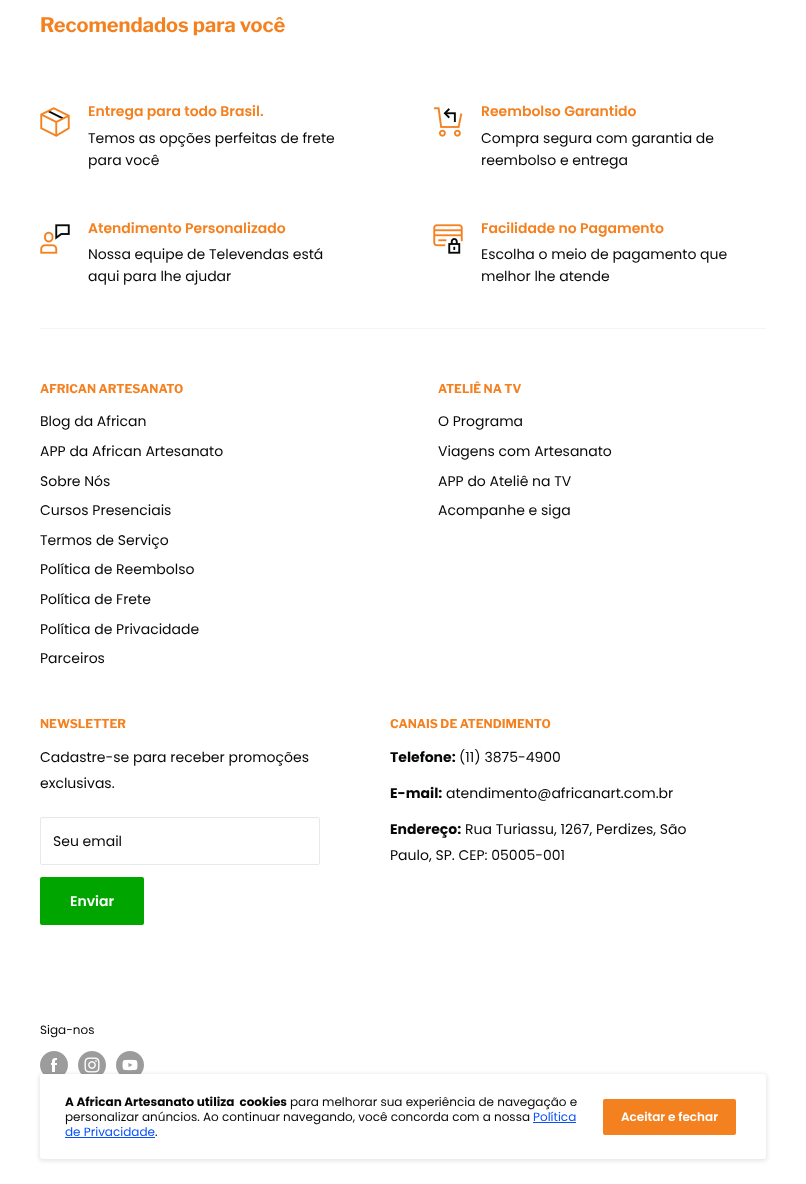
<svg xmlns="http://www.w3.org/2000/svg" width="806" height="1184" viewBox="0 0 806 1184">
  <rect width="100%" height="100%" fill="#fff"/>
  <image x="40" y="107" width="30" height="30" href="img/1.png"/>
  <image x="433" y="107" width="30" height="30" href="img/2.png"/>
  <image x="40" y="224" width="30" height="30" href="img/3.png"/>
  <image x="433" y="224" width="30" height="30" href="img/4.png"/>
  <path d="M40 328h726v1H40z" fill="#f4f5f5"/>
  <path d="M42 819H318C319 819 319 819 319 820C319 819 319 818 318 818H42H41V820C41 819 41 819 42 819Z" fill="#fcfdfd"/>
  <rect x="40.5" y="817.5" width="279" height="47" rx="1.5" fill="none" stroke="#e7e9e9"/>
  <rect x="40" y="877" width="104" height="48" rx="2" fill="#00a500"/>
  <image x="40" y="1051" width="28" height="23" href="img/5.png"/>
  <image x="78" y="1051" width="28" height="23" href="img/6.png"/>
  <image x="116" y="1051" width="28" height="23" href="img/7.png"/>
  <rect x="39" y="1074" width="728" height="87" rx="4" fill="#0000001a" filter="blur(2px)"/>
  <rect x="40" y="1074" width="726" height="85" rx="3" fill="#fff"/>
  <path d="M533 1122h43v1H533z" fill="#0850fa"/>
  <path d="M65 1137h90v1H65z" fill="#0850fa"/>
  <rect x="603" y="1099" width="133" height="36" rx="2" fill="#f48120"/>
  <text x="40" y="32" font-family="Libre Franklin" font-size="20" font-weight="bold" fill="#f48120">Recomendados para você</text>
  <text x="88" y="116" font-family="Poppins" font-size="14" font-weight="600" fill="#f48120">Entrega para todo Brasil.</text>
  <g font-family="Poppins" font-size="14" fill="#070808">
    <text x="88" y="143">Temos as opções perfeitas de frete</text>
    <text x="88" y="165">para você</text>
  </g>
  <text x="481" y="116" font-family="Poppins" font-size="14" font-weight="600" fill="#f48120">Reembolso Garantido</text>
  <g font-family="Poppins" font-size="14" fill="#070808">
    <text x="481" y="143">Compra segura com garantia de</text>
    <text x="481" y="165">reembolso e entrega</text>
  </g>
  <text x="88" y="233" font-family="Poppins" font-size="14" font-weight="600" fill="#f48120">Atendimento Personalizado</text>
  <g font-family="Poppins" font-size="14" fill="#070808">
    <text x="88" y="259">Nossa equipe de Televendas está</text>
    <text x="88" y="281">aqui para lhe ajudar</text>
  </g>
  <text x="481" y="233" font-family="Poppins" font-size="14" font-weight="600" fill="#f48120">Facilidade no Pagamento</text>
  <g font-family="Poppins" font-size="14" fill="#070808">
    <text x="481" y="259">Escolha o meio de pagamento que</text>
    <text x="481" y="281">melhor lhe atende</text>
  </g>
  <text x="40" y="393" font-family="Libre Franklin" font-size="12" font-weight="bold" fill="#f48120">AFRICAN ARTESANATO</text>
  <g font-family="Poppins" font-size="14" fill="#070808">
    <text x="40" y="426">Blog da African</text>
    <text x="40" y="456">APP da African Artesanato</text>
    <text x="40" y="486">Sobre Nós</text>
    <text x="40" y="515">Cursos Presenciais</text>
    <text x="40" y="545">Termos de Serviço</text>
    <text x="40" y="574">Política de Reembolso</text>
    <text x="40" y="604">Política de Frete</text>
    <text x="40" y="634">Política de Privacidade</text>
    <text x="40" y="663">Parceiros</text>
  </g>
  <text x="438" y="393" font-family="Libre Franklin" font-size="12" font-weight="bold" fill="#f48120">ATELIÊ NA TV</text>
  <g font-family="Poppins" font-size="14" fill="#070808">
    <text x="438" y="426">O Programa</text>
    <text x="438" y="456">Viagens com Artesanato</text>
    <text x="438" y="486">APP do Ateliê na TV</text>
    <text x="438" y="515">Acompanhe e siga</text>
  </g>
  <text x="40" y="728" font-family="Libre Franklin" font-size="12" font-weight="bold" fill="#f48120">NEWSLETTER</text>
  <g font-family="Poppins" font-size="14" fill="#070808">
    <text x="40" y="762">Cadastre-se para receber promoções</text>
    <text x="40" y="788">exclusivas.</text>
    <text x="53" y="846">Seu email</text>
  </g>
  <text x="70" y="906" font-family="Poppins" font-size="14" font-weight="600" fill="#fff">Enviar</text>
  <text x="390" y="728" font-family="Libre Franklin" font-size="12" font-weight="bold" fill="#f48120">CANAIS DE ATENDIMENTO</text>
  <text x="390" y="762" font-family="Poppins" font-size="14" font-weight="bold" fill="#070808">Telefone:</text>
  <text x="459" y="762" font-family="Poppins" font-size="14" fill="#070808">(11) 3875-4900</text>
  <text x="390" y="798" font-family="Poppins" font-size="14" font-weight="bold" fill="#070808">E-mail:</text>
  <text x="446" y="798" font-family="Poppins" font-size="14" fill="#070808">atendimento@africanart.com.br</text>
  <text x="390" y="834" font-family="Poppins" font-size="14" font-weight="bold" fill="#070808">Endereço:</text>
  <g font-family="Poppins" font-size="14" fill="#070808">
    <text x="465" y="834">Rua Turiassu, 1267, Perdizes, São</text>
    <text x="390" y="860">Paulo, SP. CEP: 05005-001</text>
  </g>
  <text x="40" y="1034" font-family="Poppins" font-size="12" fill="#070808">Siga-nos</text>
  <text x="65" y="1106" font-family="Poppins" font-size="12" font-weight="bold" fill="#070808" xml:space="preserve">A African Artesanato utiliza  cookies</text>
  <g font-family="Poppins" font-size="12" fill="#070808">
    <text x="290" y="1106">para melhorar sua experiência de navegação e</text>
    <text x="65" y="1121">personalizar anúncios. Ao continuar navegando, você concorda com a nossa</text>
  </g>
  <g font-family="Poppins" font-size="12" fill="#0850fa">
    <text x="533" y="1121">Política</text>
    <text x="65" y="1136">de Privacidade</text>
  </g>
  <text x="155" y="1136" font-family="Poppins" font-size="12" fill="#070808">.</text>
  <text x="621" y="1121" font-family="Poppins" font-size="12" font-weight="600" fill="#fff">Aceitar e fechar</text>
</svg>
